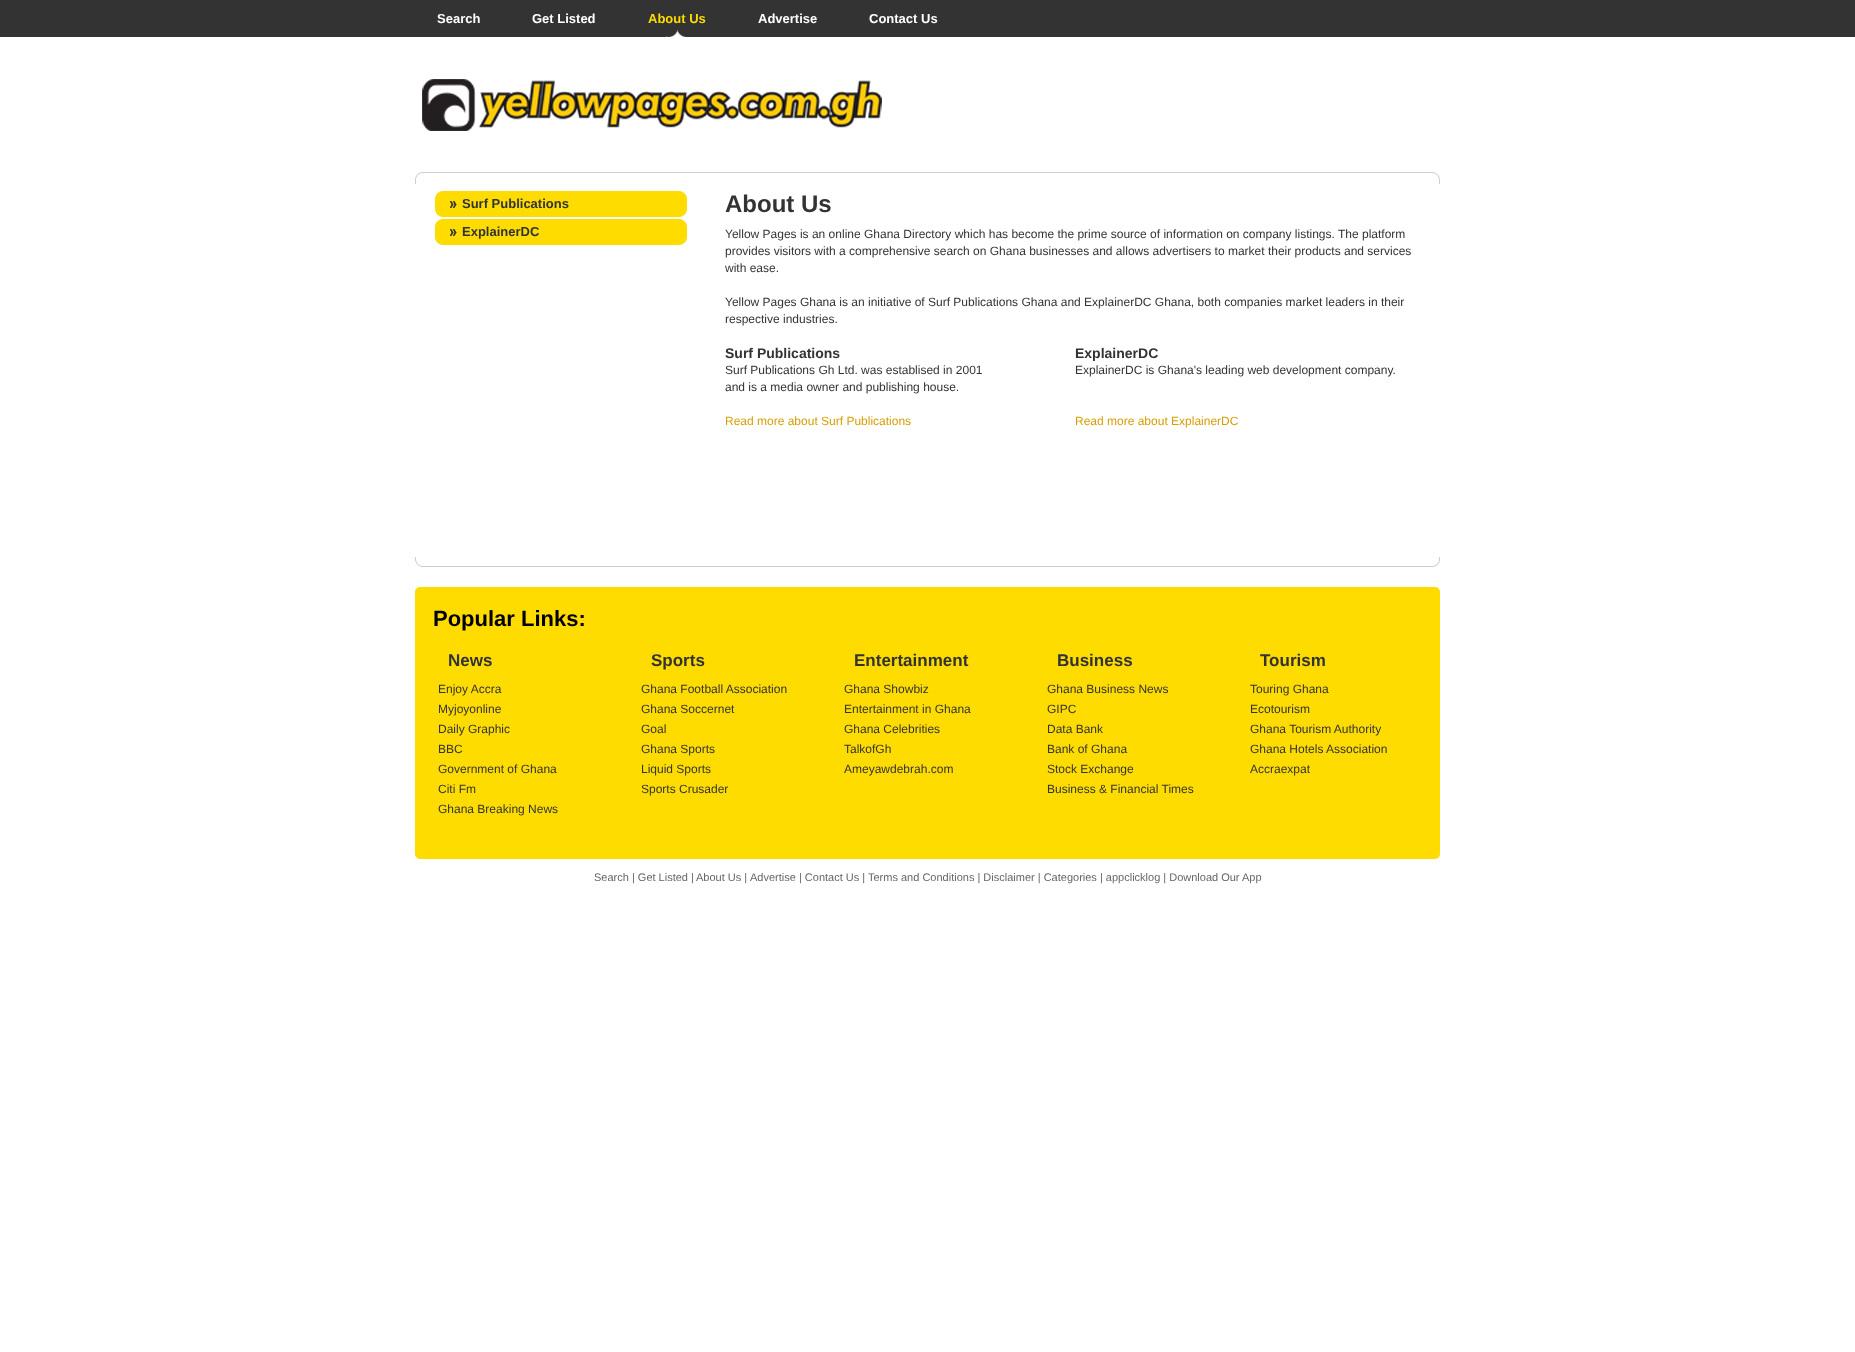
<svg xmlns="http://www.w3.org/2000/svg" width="1855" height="1352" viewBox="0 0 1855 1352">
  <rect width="100%" height="100%" fill="#fff"/>
  <path d="M0 0h1855v37H0z" fill="#333"/>
  <image x="665" y="29" width="21" height="8" href="img/1.png"/>
  <image x="422" y="79" width="460" height="52" href="img/2.png"/>
  <image x="415" y="172" width="1025" height="12" href="img/3.png"/>
  <image x="435" y="191" width="252" height="26" href="img/4.png"/>
  <image x="450" y="201" width="7" height="7" href="img/5.png"/>
  <image x="435" y="219" width="252" height="26" href="img/4.png"/>
  <image x="450" y="229" width="7" height="7" href="img/5.png"/>
  <image x="415" y="557" width="1025" height="10" href="img/6.png"/>
  <image x="415" y="587" width="1025" height="15" href="img/7.png"/>
  <path d="M415 602h1025v239H415z" fill="#ffdc00"/>
  <image x="415" y="841" width="1025" height="18" href="img/8.png"/>
  <g font-family="Liberation Sans" font-size="13" font-weight="bold" fill="#fff">
    <text x="437" y="23">Search</text>
    <text x="532" y="23">Get Listed</text>
  </g>
  <text x="648" y="23" font-family="Liberation Sans" font-size="13" font-weight="bold" fill="#fedc00">About Us</text>
  <g font-family="Liberation Sans" font-size="13" font-weight="bold" fill="#fff">
    <text x="758" y="23">Advertise</text>
    <text x="869" y="23">Contact Us</text>
  </g>
  <g font-family="Liberation Sans" font-size="13" font-weight="bold" fill="#333">
    <text x="462" y="208">Surf Publications</text>
    <text x="462" y="236">ExplainerDC</text>
  </g>
  <text x="725" y="212" font-family="Liberation Sans" font-size="24" font-weight="bold" fill="#333">About Us</text>
  <g font-family="Liberation Sans" font-size="12" fill="#333">
    <text x="725" y="238">Yellow Pages is an online Ghana Directory which has become the prime source of information on company listings. The platform</text>
    <text x="725" y="255">provides visitors with a comprehensive search on Ghana businesses and allows advertisers to market their products and services</text>
    <text x="725" y="272">with ease.</text>
    <text x="725" y="306">Yellow Pages Ghana is an initiative of Surf Publications Ghana and ExplainerDC Ghana, both companies market leaders in their</text>
    <text x="725" y="323">respective industries.</text>
  </g>
  <text x="725" y="358" font-family="Liberation Sans" font-size="14" font-weight="bold" fill="#333">Surf Publications</text>
  <g font-family="Liberation Sans" font-size="12" fill="#333">
    <text x="725" y="374">Surf Publications Gh Ltd. was establised in 2001</text>
    <text x="725" y="391">and is a media owner and publishing house.</text>
  </g>
  <text x="725" y="425" font-family="Liberation Sans" font-size="12" fill="#d79e03">Read more about Surf Publications</text>
  <text x="1075" y="358" font-family="Liberation Sans" font-size="14" font-weight="bold" fill="#333">ExplainerDC</text>
  <text x="1075" y="374" font-family="Liberation Sans" font-size="12" fill="#333">ExplainerDC is Ghana's leading web development company.</text>
  <text x="1075" y="425" font-family="Liberation Sans" font-size="12" fill="#d79e03">Read more about ExplainerDC</text>
  <text x="433" y="626" font-family="Liberation Sans" font-size="22" font-weight="bold" fill="#000">Popular Links:</text>
  <text x="448" y="666" font-family="Liberation Sans" font-size="17" font-weight="bold" fill="#333">News</text>
  <g font-family="Liberation Sans" font-size="12" fill="#333">
    <text x="438" y="693">Enjoy Accra</text>
    <text x="438" y="713">Myjoyonline</text>
    <text x="438" y="733">Daily Graphic</text>
    <text x="438" y="753">BBC</text>
    <text x="438" y="773">Government of Ghana</text>
    <text x="438" y="793">Citi Fm</text>
    <text x="438" y="813">Ghana Breaking News</text>
  </g>
  <text x="651" y="666" font-family="Liberation Sans" font-size="17" font-weight="bold" fill="#333">Sports</text>
  <g font-family="Liberation Sans" font-size="12" fill="#333">
    <text x="641" y="693">Ghana Football Association</text>
    <text x="641" y="713">Ghana Soccernet</text>
    <text x="641" y="733">Goal</text>
    <text x="641" y="753">Ghana Sports</text>
    <text x="641" y="773">Liquid Sports</text>
    <text x="641" y="793">Sports Crusader</text>
  </g>
  <text x="854" y="666" font-family="Liberation Sans" font-size="17" font-weight="bold" fill="#333">Entertainment</text>
  <g font-family="Liberation Sans" font-size="12" fill="#333">
    <text x="844" y="693">Ghana Showbiz</text>
    <text x="844" y="713">Entertainment in Ghana</text>
    <text x="844" y="733">Ghana Celebrities</text>
    <text x="844" y="753">TalkofGh</text>
    <text x="844" y="773">Ameyawdebrah.com</text>
  </g>
  <text x="1057" y="666" font-family="Liberation Sans" font-size="17" font-weight="bold" fill="#333">Business</text>
  <g font-family="Liberation Sans" font-size="12" fill="#333">
    <text x="1047" y="693">Ghana Business News</text>
    <text x="1047" y="713">GIPC</text>
    <text x="1047" y="733">Data Bank</text>
    <text x="1047" y="753">Bank of Ghana</text>
    <text x="1047" y="773">Stock Exchange</text>
    <text x="1047" y="793">Business &amp; Financial Times</text>
  </g>
  <text x="1260" y="666" font-family="Liberation Sans" font-size="17" font-weight="bold" fill="#333">Tourism</text>
  <g font-family="Liberation Sans" font-size="12" fill="#333">
    <text x="1250" y="693">Touring Ghana</text>
    <text x="1250" y="713">Ecotourism</text>
    <text x="1250" y="733">Ghana Tourism Authority</text>
    <text x="1250" y="753">Ghana Hotels Association</text>
    <text x="1250" y="773">Accraexpat</text>
  </g>
  <g font-family="Liberation Sans" font-size="11" fill="#666">
    <text x="594" y="881">Search | Get Listed |</text>
    <text x="696" y="881">About Us |</text>
    <text x="750" y="881">Advertise | Contact Us | Terms and Conditions | Disclaimer | Categories | appclicklog | Download Our App</text>
  </g>
</svg>
